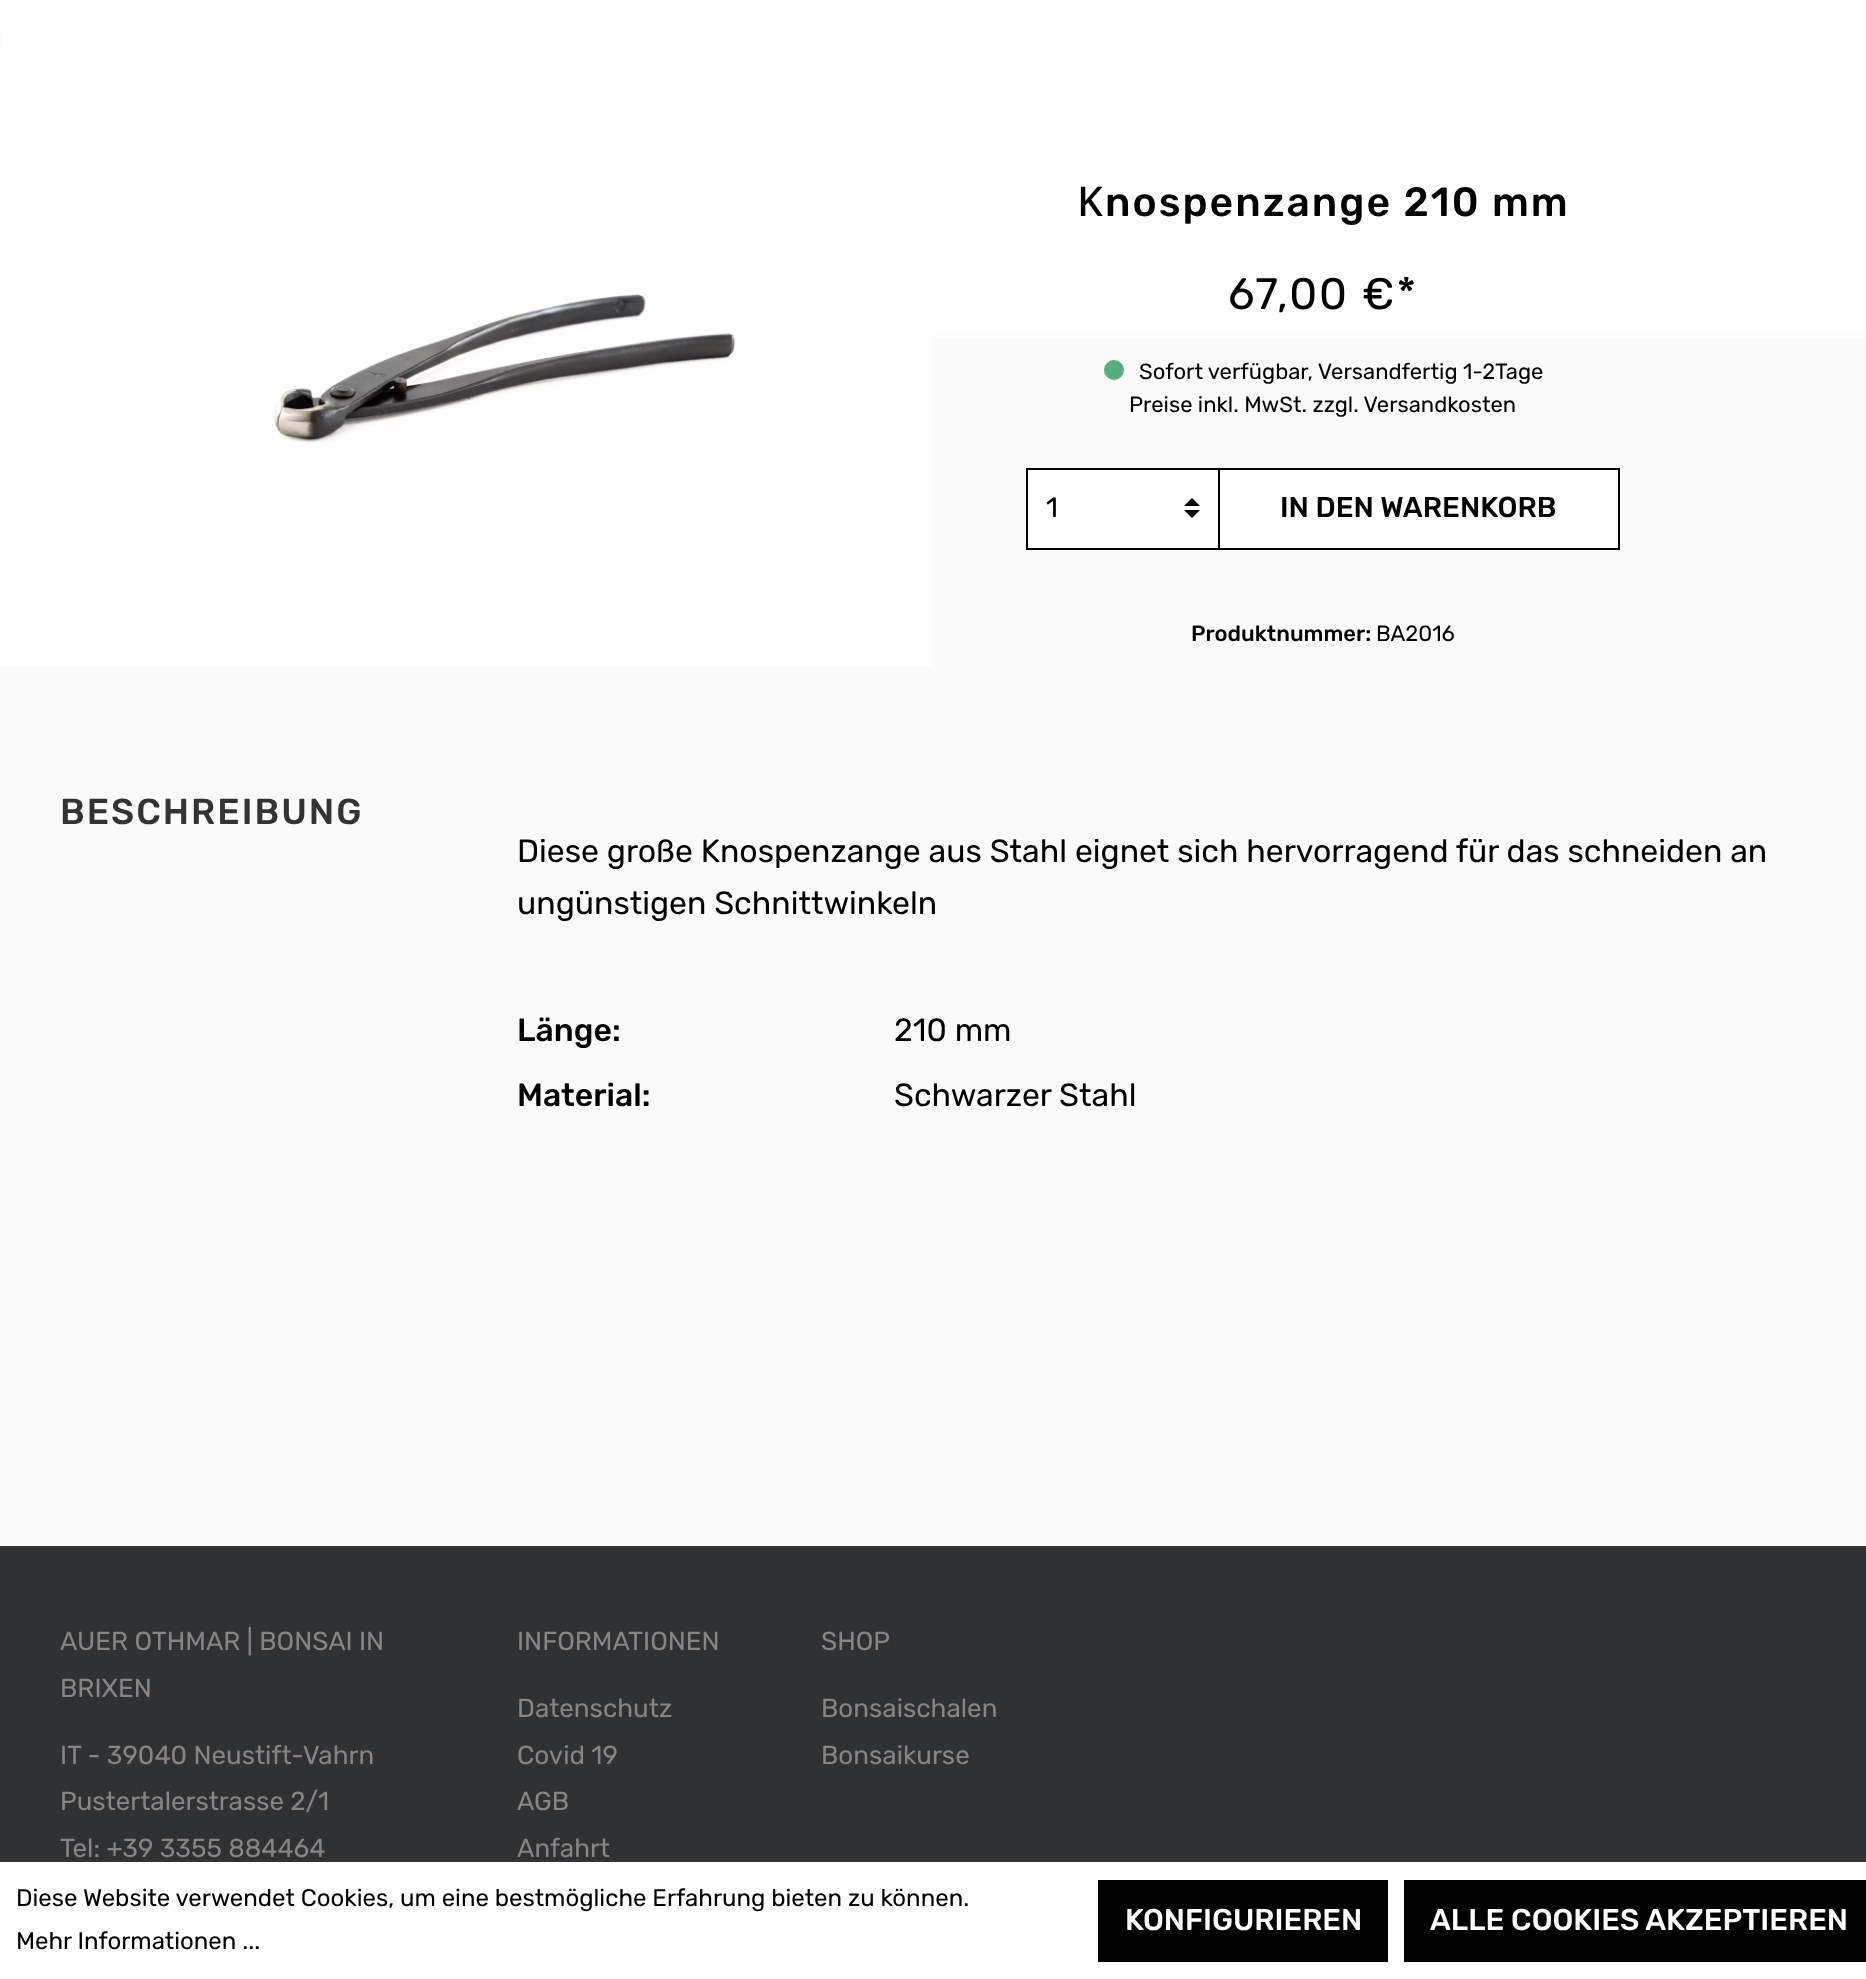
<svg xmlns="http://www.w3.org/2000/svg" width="1866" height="1979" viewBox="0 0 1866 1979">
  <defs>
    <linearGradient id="g1" gradientUnits="userSpaceOnUse" x1="934" y1="-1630" x2="934" y2="350"><stop offset="0.99" stop-color="#fff"/><stop offset="1" stop-color="#f9f9f9"/></linearGradient>
  </defs>
  <rect width="100%" height="100%" fill="#fafafa"/>
  <path d="M0 0h1866v32H0z" fill="#fff"/>
  <path d="M2 32h1864v306H2z" fill="url(#g1)"/>
  <image x="0" y="46" width="932" height="620" href="img/1.png"/>
  <circle cx="1114" cy="370" r="10" fill="#54ae7d"/>
  <path d="M1028 470h190v78H1028z" fill="#fff"/>
  <path d="M1192 498L1184 506H1200ZM1192 518L1184 510H1200Z" fill="#000"/>
  <path d="M1026 468h192v2H1026z" fill="#000"/>
  <path d="M1026 548h192v2H1026z" fill="#000"/>
  <path d="M1026 468h2v82H1026z" fill="#000"/>
  <path d="M1219 469h400v80H1219z" fill="#fff" stroke="#000" stroke-width="2"/>
  <path d="M0 1548h1866v312H0z" fill="#303132"/>
  <path d="M0 1546h1866v2H0z" fill="#333"/>
  <path d="M0 1862h1866v117H0z" fill="#fff"/>
  <path d="M0 1860h1866v2H0z" fill="#333"/>
  <path d="M1098 1880h290v82H1098z" fill="#000"/>
  <path d="M1404 1880h462v82H1404z" fill="#000"/>
  <text x="1077" y="216" font-family="Noto Sans" font-size="40.9" font-weight="500" letter-spacing="2" fill="#000">K</text>
  <text x="1105" y="216" font-family="Rubik" font-size="40.9" font-weight="500" letter-spacing="2" fill="#000">nospenzange 210 mm</text>
  <text x="1228" y="309" font-family="Rubik" font-size="44" letter-spacing="2" fill="#000">67,00 €*</text>
  <g font-family="Rubik" font-size="22" fill="#000">
    <text x="1139" y="379">Sofort verfügbar, Versandfertig 1-2Tage</text>
    <text x="1129" y="412">Preise inkl. MwSt. zzgl. Versandkosten</text>
  </g>
  <text x="1046" y="517" font-family="Rubik" font-size="28" fill="#000">1</text>
  <text x="1280" y="517" font-family="Rubik" font-size="28.75" font-weight="500" fill="#000">IN DEN WARENKORB</text>
  <text x="1191" y="641" font-family="Rubik" font-size="22" font-weight="500" fill="#000">Produktnummer:</text>
  <text x="1376" y="641" font-family="Rubik" font-size="22" fill="#000">BA2016</text>
  <text x="60" y="824" font-family="Rubik" font-size="36" font-weight="500" letter-spacing="2" fill="#333">BESCHREIBUNG</text>
  <g font-family="Rubik" font-size="32" fill="#000">
    <text x="517" y="862">Diese große Knospenzange aus Stahl eignet sich hervorragend für das schneiden an</text>
    <text x="517" y="914">ungünstigen Schnittwinkeln</text>
  </g>
  <text x="517" y="1041" font-family="Rubik" font-size="32" font-weight="500" fill="#000">Länge:</text>
  <text x="894" y="1041" font-family="Rubik" font-size="32" fill="#000">210 mm</text>
  <text x="517" y="1106" font-family="Rubik" font-size="32" font-weight="500" fill="#000">Material:</text>
  <text x="894" y="1106" font-family="Rubik" font-size="32" fill="#000">Schwarzer Stahl</text>
  <g font-family="Rubik" font-size="26" fill="#878484">
    <text x="60" y="1650">AUER OTHMAR | BONSAI IN</text>
    <text x="60" y="1697">BRIXEN</text>
    <text x="60" y="1764">IT - 39040 Neustift-Vahrn</text>
    <text x="60" y="1810">Pustertalerstrasse 2/1</text>
    <text x="60" y="1857">Tel: +39 3355 884464</text>
    <text x="517" y="1650">INFORMATIONEN</text>
    <text x="517" y="1717">Datenschutz</text>
    <text x="517" y="1764">Covid 19</text>
    <text x="517" y="1810">AGB</text>
    <text x="517" y="1857">Anfahrt</text>
    <text x="821" y="1650">SHOP</text>
    <text x="821" y="1717">Bonsaischalen</text>
    <text x="821" y="1764">Bonsaikurse</text>
  </g>
  <g font-family="Rubik" font-size="24" fill="#000">
    <text x="16" y="1906">Diese Website verwendet Cookies, um eine bestmögliche Erfahrung bieten zu können.</text>
    <text x="16" y="1949">Mehr Informationen ...</text>
  </g>
  <g font-family="Rubik" font-size="30" font-weight="500" fill="#fff">
    <text x="1125" y="1930">KONFIGURIEREN</text>
    <text x="1430" y="1930">ALLE COOKIES AKZEPTIEREN</text>
  </g>
</svg>
